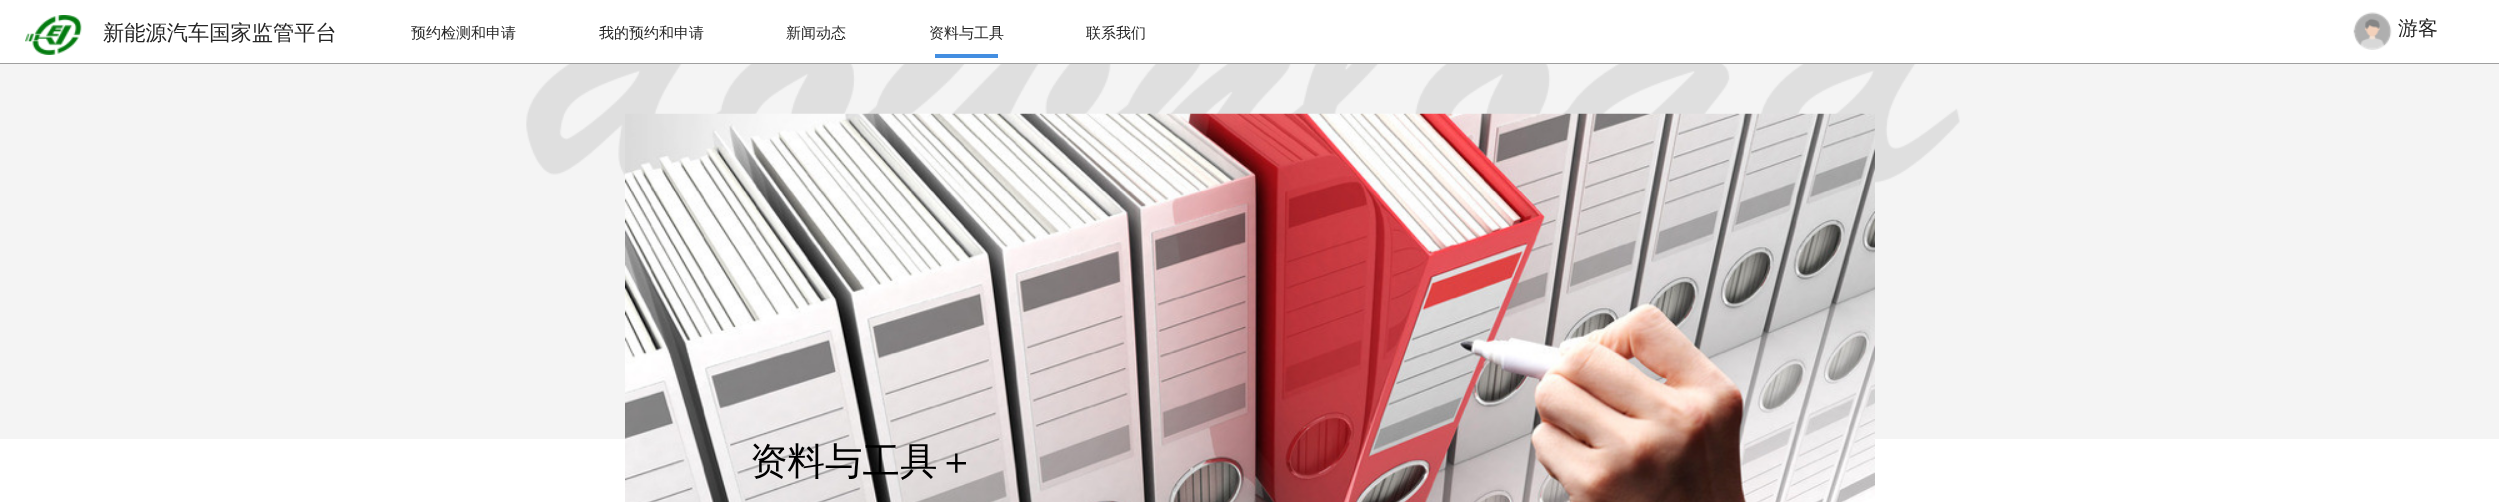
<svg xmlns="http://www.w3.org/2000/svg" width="2499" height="502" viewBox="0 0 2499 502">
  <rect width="100%" height="100%" fill="#fff"/>
  <path d="M0 63h2499v1H0z" fill="#9f9f9f"/>
  <image x="25" y="15" width="57" height="40" href="img/1.png"/>
  <path d="M935 54h63v4H935z" fill="#438ee1"/>
  <image x="2353" y="12" width="39" height="38" href="img/2.png"/>
  <path d="M0 64h2499v375H0z" fill="#f4f4f4"/>
  <image x="526" y="64" width="1434" height="119" href="img/3.png"/>
  <image x="625" y="113" width="1250" height="389" href="img/4.png"/>
  <text x="103" y="40" font-family="WenQuanYi Zen Hei" font-size="21.25" font-weight="500" fill="#262626">新能源汽车国家监管平台</text>
  <g font-family="WenQuanYi Zen Hei" font-size="15" font-weight="500" fill="#262626">
    <text x="411" y="38">预约检测和申请</text>
    <text x="599" y="38">我的预约和申请</text>
    <text x="786" y="38">新闻动态</text>
    <text x="929" y="38">资料与工具</text>
    <text x="1086" y="38">联系我们</text>
  </g>
  <text x="2398" y="35" font-family="WenQuanYi Zen Hei" font-size="20" font-weight="500" fill="#262626">游客</text>
  <text x="750" y="474" font-family="WenQuanYi Zen Hei" font-size="37.5" font-weight="500" fill="#000">资料与工具＋</text>
</svg>
